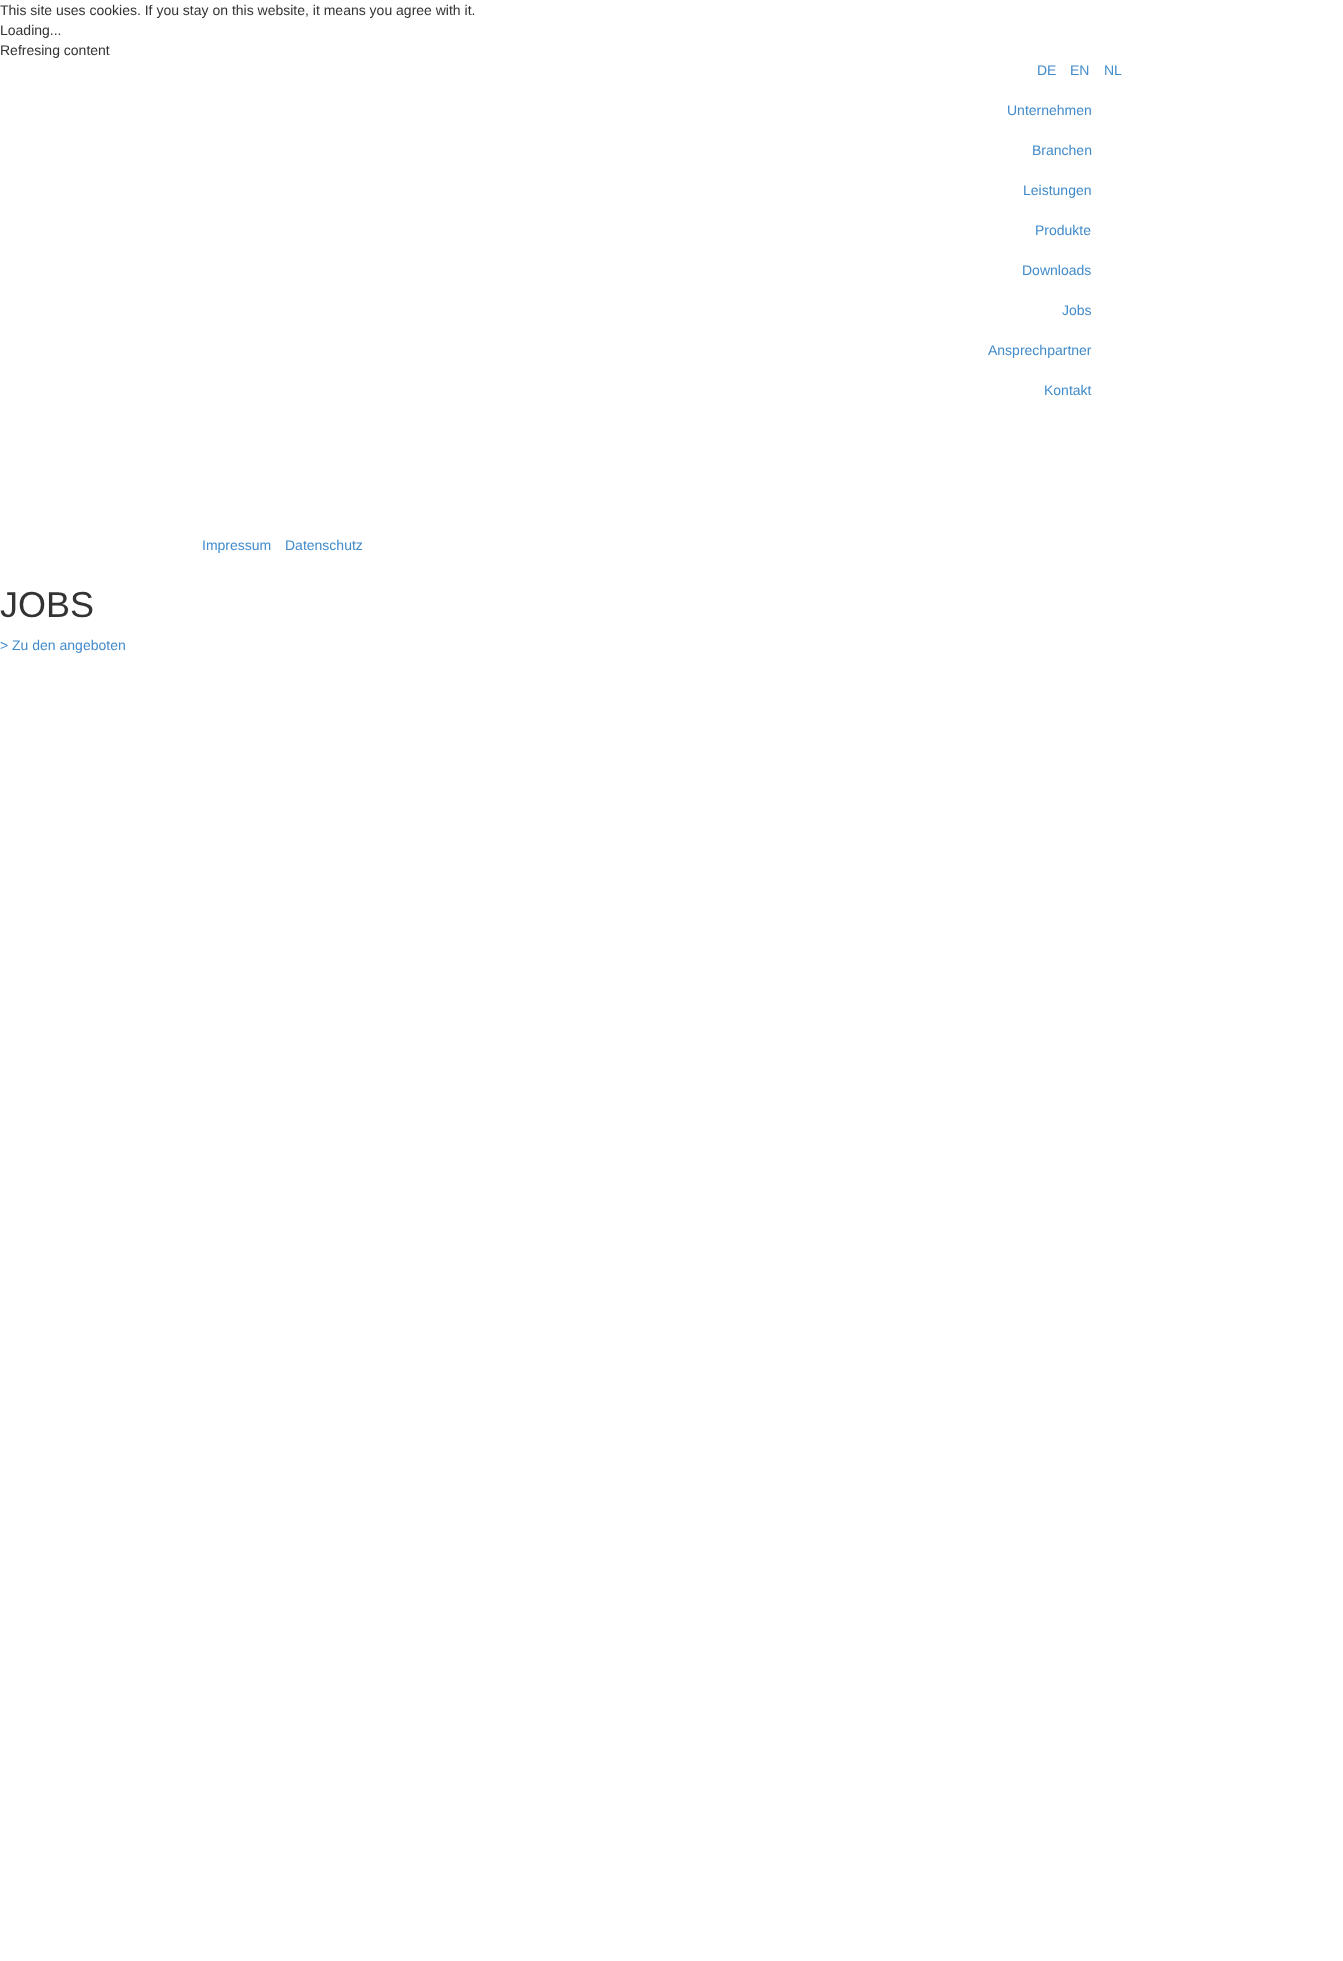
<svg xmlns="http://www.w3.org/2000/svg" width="1343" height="1961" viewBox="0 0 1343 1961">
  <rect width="100%" height="100%" fill="#fff"/>
  <g font-family="Liberation Sans" font-size="14" fill="#333">
    <text x="0" y="15">This site uses cookies. If you stay on this website, it means you agree with it.</text>
    <text x="0" y="35">Loading...</text>
    <text x="0" y="55">Refresing content</text>
  </g>
  <g font-family="Liberation Sans" font-size="14" fill="#428bca">
    <text x="1037" y="75">DE</text>
    <text x="1070" y="75">EN</text>
    <text x="1104" y="75">NL</text>
    <text x="1007" y="115">Unternehmen</text>
    <text x="1032" y="155">Branchen</text>
    <text x="1023" y="195">Leistungen</text>
    <text x="1035" y="235">Produkte</text>
    <text x="1022" y="275">Downloads</text>
    <text x="1062" y="315">Jobs</text>
    <text x="988" y="355">Ansprechpartner</text>
    <text x="1044" y="395">Kontakt</text>
    <text x="202" y="550">Impressum</text>
    <text x="285" y="550">Datenschutz</text>
  </g>
  <text x="0" y="617" font-family="Liberation Sans" font-size="36" fill="#333">JOBS</text>
  <text x="0" y="650" font-family="Liberation Sans" font-size="14" fill="#428bca">&gt; Zu den angeboten</text>
</svg>
